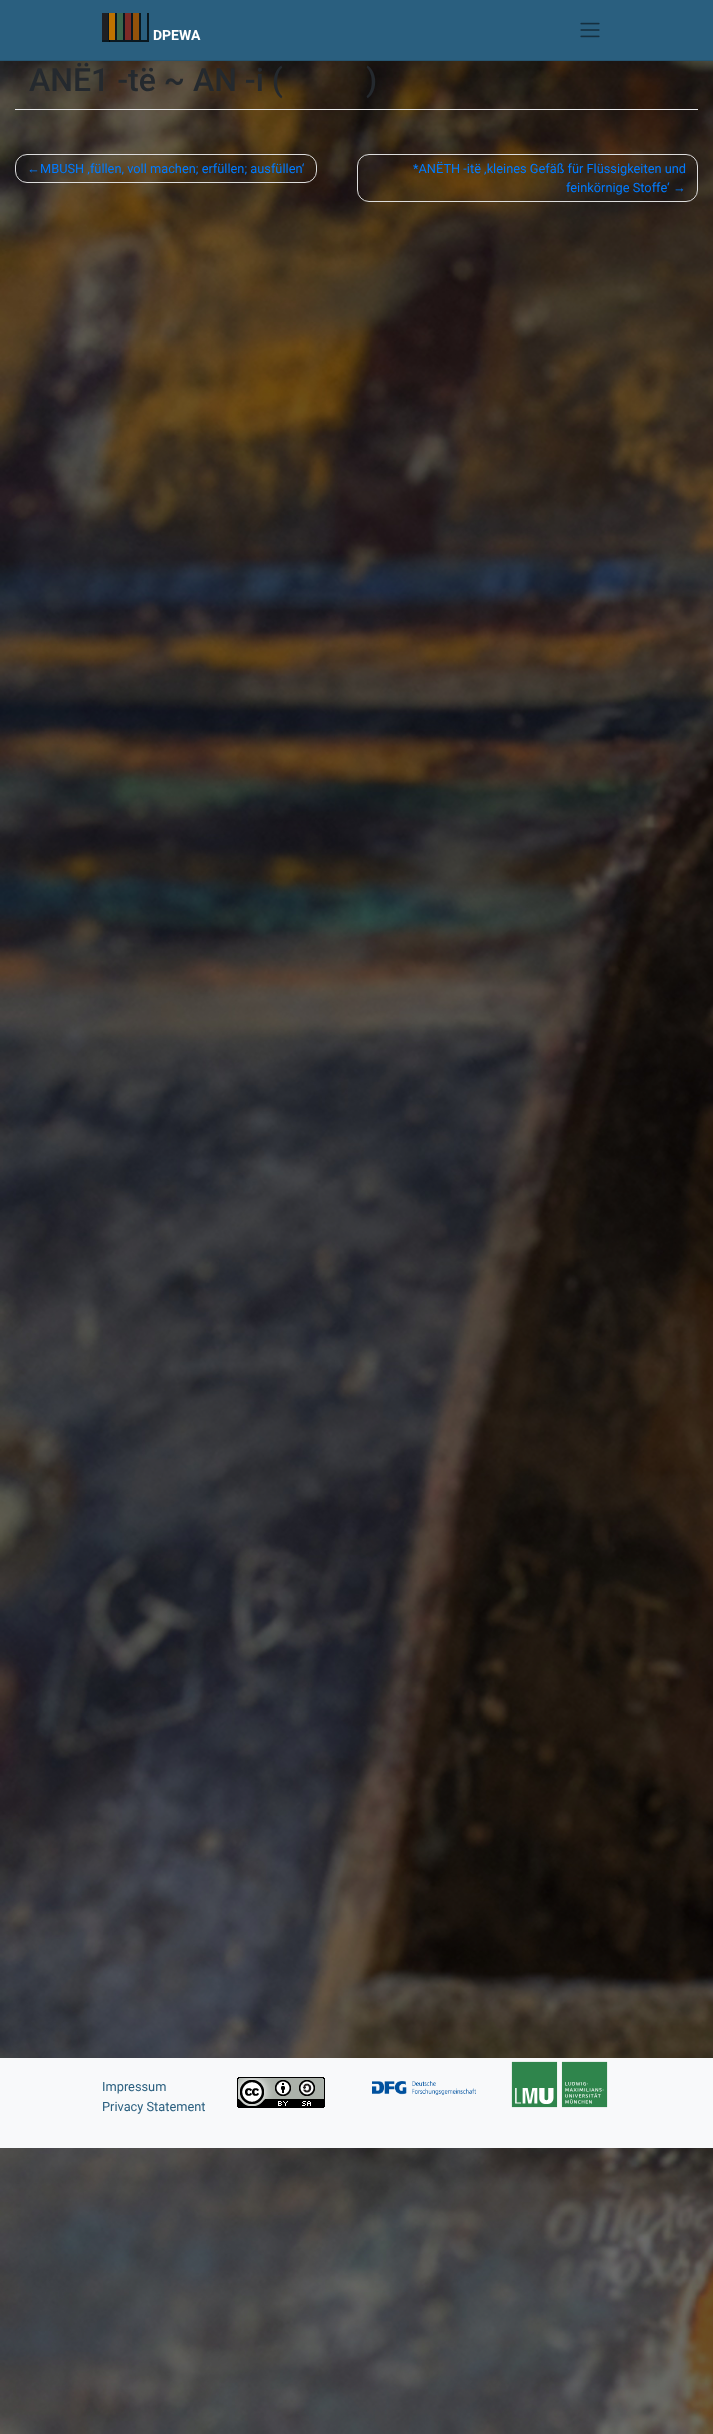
<svg xmlns="http://www.w3.org/2000/svg" width="713" height="2434" viewBox="0 0 713 2434">
  <rect width="100%" height="100%" fill="#fff"/>
  <image x="0" y="61" width="713" height="2373" href="img/2.png"/>
  <path d="M0 6h713v61H0z" fill="#0000000d" filter="blur(6.5px)"/>
  <path d="M0 0h713v60H0z" fill="#2a5f7f"/>
  <path d="M0 60h713v1H0z" fill="#265672"/>
  <path d="M102 13h8v29H102z" fill="#000000bf" filter="blur(0.5px)"/>
  <path d="M102 13h6v27H102z" fill="#1f1f23"/>
  <path d="M109 13h8v29H109z" fill="#000000bf" filter="blur(0.5px)"/>
  <path d="M109 13h6v27H109z" fill="#be7200"/>
  <path d="M117 13h8v29H117z" fill="#000000bf" filter="blur(0.5px)"/>
  <path d="M117 13h6v27H117z" fill="#3a684e"/>
  <path d="M125 13h8v29H125z" fill="#000000bf" filter="blur(0.5px)"/>
  <path d="M125 13h6v27H125z" fill="#7c2b27"/>
  <path d="M133 13h8v29H133z" fill="#000000bf" filter="blur(0.5px)"/>
  <path d="M133 13h6v27H133z" fill="#92520b"/>
  <path d="M141 13h8v29H141z" fill="#000000bf" filter="blur(0.5px)"/>
  <path d="M141 13h6v27H141z" fill="#2a5f7f"/>
  <image x="580" y="22" width="20" height="16" href="img/1.png"/>
  <path d="M15 109h683v1H15z" fill="#eaecef"/>
  <rect x="15.5" y="154.5" width="301" height="28" rx="11.5" fill="none" stroke="#ddd"/>
  <rect x="357.5" y="154.5" width="340" height="47" rx="11.5" fill="none" stroke="#ddd"/>
  <path d="M0 2058h713v90H0z" fill="#f8f9fa"/>
  <image x="237" y="2077" width="88" height="31" href="img/3.png"/>
  <image x="372" y="2081" width="104" height="14" href="img/4.png"/>
  <image x="511" y="2061" width="97" height="47" href="img/5.png"/>
  <text x="153" y="40" font-family="Roboto" font-size="14" font-weight="bold" fill="#fff">DPEWA</text>
  <g font-family="Roboto" font-size="32" font-weight="500" fill="#24292e">
    <text x="29" y="91">ANË1 -të ~ AN -i (</text>
    <text x="366" y="91">)</text>
  </g>
  <text x="27" y="173" font-family="Liberation Sans" font-size="12.8" fill="#007bff">←</text>
  <g font-family="Roboto" font-size="12.8" fill="#007bff">
    <text x="40" y="173">MBUSH ‚füllen, voll machen; erfüllen; ausfüllen‘</text>
    <text x="413" y="173">*ANËTH -itë ,kleines Gefäß für Flüssigkeiten und</text>
    <text x="566" y="192">feinkörnige Stoffe‘</text>
  </g>
  <text x="673" y="192" font-family="Liberation Sans" font-size="12.8" fill="#007bff">→</text>
  <g font-family="Roboto" font-size="12.8" fill="#2a5f7f">
    <text x="102" y="2091">Impressum</text>
    <text x="102" y="2111">Privacy Statement</text>
  </g>
</svg>
